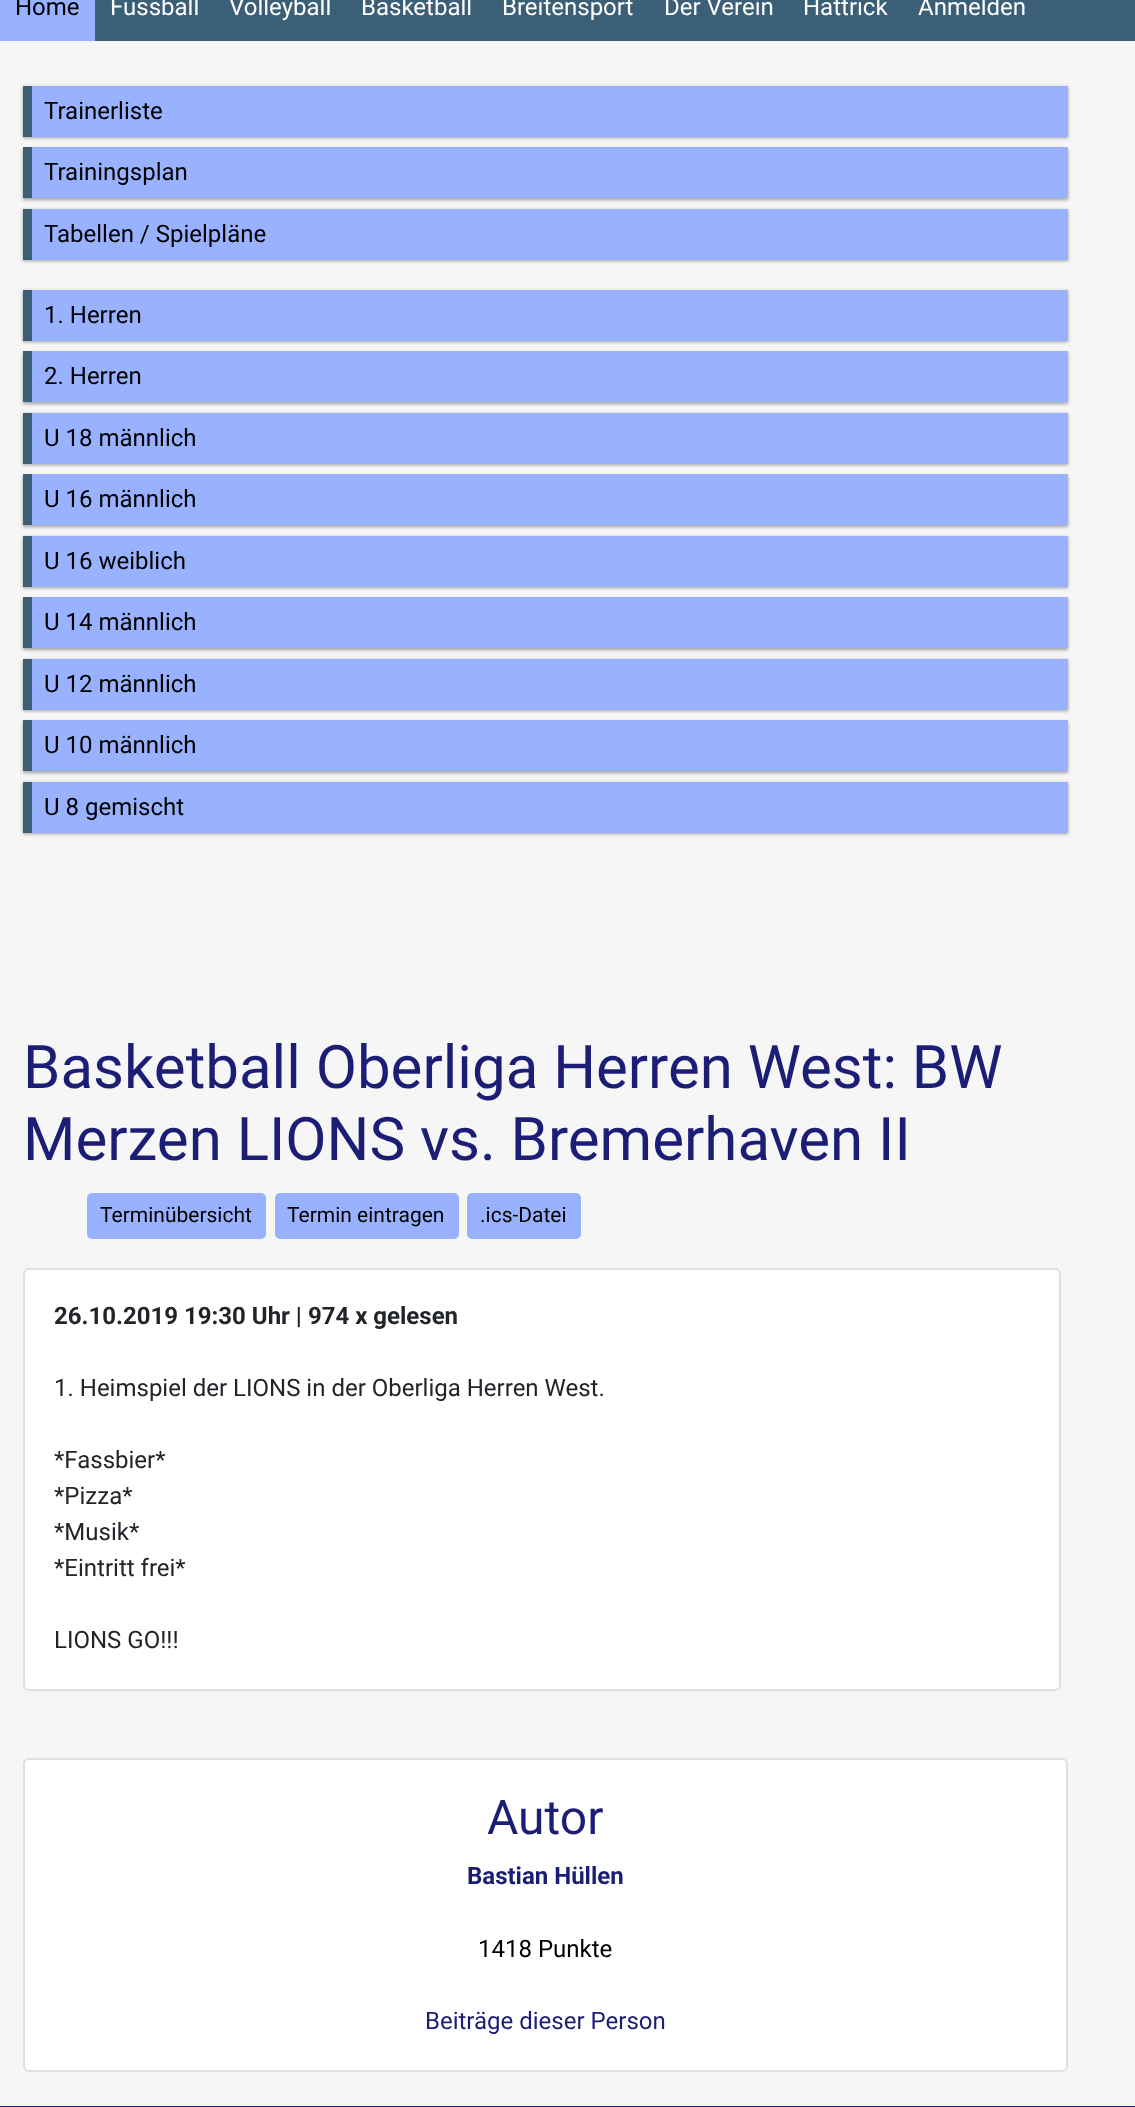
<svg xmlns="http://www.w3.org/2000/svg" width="1135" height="2107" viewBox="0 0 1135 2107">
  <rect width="100%" height="100%" fill="#f6f6f6"/>
  <path d="M95 0h1040v41H95z" fill="#3a5f77"/>
  <path d="M0 0h95v41H0z" fill="#99b2ff"/>
  <path d="M23 87h1045v51H23z" fill="#0000003d" filter="blur(1.5px)"/>
  <path d="M23 87h1045v51H23z" fill="#0000001f" filter="blur(2px)"/>
  <path d="M32 86h1036v51H32z" fill="#99b2ff"/>
  <path d="M23 86h9v51H23z" fill="#3a5f77"/>
  <path d="M23 149h1045v51H23z" fill="#0000003d" filter="blur(1.5px)"/>
  <path d="M23 149h1045v51H23z" fill="#0000001f" filter="blur(2px)"/>
  <path d="M32 147h1036v51H32z" fill="#99b2ff"/>
  <path d="M23 147h9v51H23z" fill="#3a5f77"/>
  <path d="M23 210h1045v51H23z" fill="#0000003d" filter="blur(1.5px)"/>
  <path d="M23 210h1045v51H23z" fill="#0000001f" filter="blur(2px)"/>
  <path d="M32 209h1036v51H32z" fill="#99b2ff"/>
  <path d="M23 209h9v51H23z" fill="#3a5f77"/>
  <path d="M23 291h1045v51H23z" fill="#0000003d" filter="blur(1.5px)"/>
  <path d="M23 291h1045v51H23z" fill="#0000001f" filter="blur(2px)"/>
  <path d="M32 290h1036v51H32z" fill="#99b2ff"/>
  <path d="M23 290h9v51H23z" fill="#3a5f77"/>
  <path d="M23 353h1045v51H23z" fill="#0000003d" filter="blur(1.5px)"/>
  <path d="M23 353h1045v51H23z" fill="#0000001f" filter="blur(2px)"/>
  <path d="M32 351h1036v51H32z" fill="#99b2ff"/>
  <path d="M23 351h9v51H23z" fill="#3a5f77"/>
  <path d="M23 414h1045v51H23z" fill="#0000003d" filter="blur(1.5px)"/>
  <path d="M23 414h1045v51H23z" fill="#0000001f" filter="blur(2px)"/>
  <path d="M32 413h1036v51H32z" fill="#99b2ff"/>
  <path d="M23 413h9v51H23z" fill="#3a5f77"/>
  <path d="M23 476h1045v51H23z" fill="#0000003d" filter="blur(1.5px)"/>
  <path d="M23 476h1045v51H23z" fill="#0000001f" filter="blur(2px)"/>
  <path d="M32 474h1036v51H32z" fill="#99b2ff"/>
  <path d="M23 474h9v51H23z" fill="#3a5f77"/>
  <path d="M23 537h1045v51H23z" fill="#0000003d" filter="blur(1.5px)"/>
  <path d="M23 537h1045v51H23z" fill="#0000001f" filter="blur(2px)"/>
  <path d="M32 536h1036v51H32z" fill="#99b2ff"/>
  <path d="M23 536h9v51H23z" fill="#3a5f77"/>
  <path d="M23 599h1045v51H23z" fill="#0000003d" filter="blur(1.5px)"/>
  <path d="M23 599h1045v51H23z" fill="#0000001f" filter="blur(2px)"/>
  <path d="M32 597h1036v51H32z" fill="#99b2ff"/>
  <path d="M23 597h9v51H23z" fill="#3a5f77"/>
  <path d="M23 660h1045v51H23z" fill="#0000003d" filter="blur(1.5px)"/>
  <path d="M23 660h1045v51H23z" fill="#0000001f" filter="blur(2px)"/>
  <path d="M32 659h1036v51H32z" fill="#99b2ff"/>
  <path d="M23 659h9v51H23z" fill="#3a5f77"/>
  <path d="M23 722h1045v51H23z" fill="#0000003d" filter="blur(1.5px)"/>
  <path d="M23 722h1045v51H23z" fill="#0000001f" filter="blur(2px)"/>
  <path d="M32 720h1036v51H32z" fill="#99b2ff"/>
  <path d="M23 720h9v51H23z" fill="#3a5f77"/>
  <path d="M23 783h1045v51H23z" fill="#0000003d" filter="blur(1.5px)"/>
  <path d="M23 783h1045v51H23z" fill="#0000001f" filter="blur(2px)"/>
  <path d="M32 782h1036v51H32z" fill="#99b2ff"/>
  <path d="M23 782h9v51H23z" fill="#3a5f77"/>
  <rect x="88" y="1194" width="177" height="44" rx="4" fill="#99b2ff" stroke="#99b2ff" stroke-width="2"/>
  <rect x="276" y="1194" width="182" height="44" rx="4" fill="#99b2ff" stroke="#99b2ff" stroke-width="2"/>
  <rect x="468" y="1194" width="112" height="44" rx="4" fill="#99b2ff" stroke="#99b2ff" stroke-width="2"/>
  <rect x="24" y="1269" width="1036" height="421" rx="5" fill="#fff" stroke="#dfdfdf" stroke-width="2"/>
  <rect x="24" y="1759" width="1043" height="312" rx="5" fill="#fff" stroke="#dfdfdf" stroke-width="2"/>
  <path d="M0 2106h1135v1H0z" fill="#1c1e75"/>
  <text x="15" y="15" font-family="Roboto" font-size="24" fill="#000">Home</text>
  <g font-family="Roboto" font-size="24" fill="#fff">
    <text x="110" y="15">Fussball</text>
    <text x="229" y="15">Volleyball</text>
    <text x="361" y="15">Basketball</text>
    <text x="502" y="15">Breitensport</text>
    <text x="664" y="15">Der Verein</text>
    <text x="803" y="15">Hattrick</text>
    <text x="918" y="15">Anmelden</text>
  </g>
  <g font-family="Roboto" font-size="24" fill="#000">
    <text x="44" y="119">Trainerliste</text>
    <text x="44" y="180">Trainingsplan</text>
    <text x="44" y="242">Tabellen / Spielpläne</text>
    <text x="44" y="323">1. Herren</text>
    <text x="44" y="384">2. Herren</text>
    <text x="44" y="446">U 18 männlich</text>
    <text x="44" y="507">U 16 männlich</text>
    <text x="44" y="569">U 16 weiblich</text>
    <text x="44" y="630">U 14 männlich</text>
    <text x="44" y="692">U 12 männlich</text>
    <text x="44" y="753">U 10 männlich</text>
    <text x="44" y="815">U 8 gemischt</text>
  </g>
  <g font-family="Roboto" font-size="60" fill="#1c1e75">
    <text x="23" y="1088">Basketball Oberliga Herren West: BW</text>
    <text x="23" y="1160">Merzen LIONS vs. Bremerhaven II</text>
  </g>
  <g font-family="Roboto" font-size="21" fill="#000">
    <text x="100" y="1222">Terminübersicht</text>
    <text x="287" y="1222">Termin eintragen</text>
    <text x="480" y="1222">.ics-Datei</text>
  </g>
  <text x="54" y="1324" font-family="Roboto" font-size="24" font-weight="bold" fill="#212529">26.10.2019 19:30 Uhr | 974 x gelesen</text>
  <g font-family="Roboto" font-size="24" fill="#212529">
    <text x="54" y="1396">1. Heimspiel der LIONS in der Oberliga Herren West.</text>
    <text x="54" y="1468">*Fassbier*</text>
    <text x="54" y="1504">*Pizza*</text>
    <text x="54" y="1540">*Musik*</text>
    <text x="54" y="1576">*Eintritt frei*</text>
    <text x="54" y="1648">LIONS GO!!!</text>
  </g>
  <text x="487" y="1834" font-family="Roboto" font-size="48" fill="#1c1e75">Autor</text>
  <text x="467" y="1884" font-family="Roboto" font-size="24" font-weight="bold" fill="#1c1e75">Bastian Hüllen</text>
  <text x="478" y="1957" font-family="Roboto" font-size="24" fill="#000">1418 Punkte</text>
  <text x="425" y="2029" font-family="Roboto" font-size="24" fill="#1c1e75">Beiträge dieser Person</text>
</svg>
